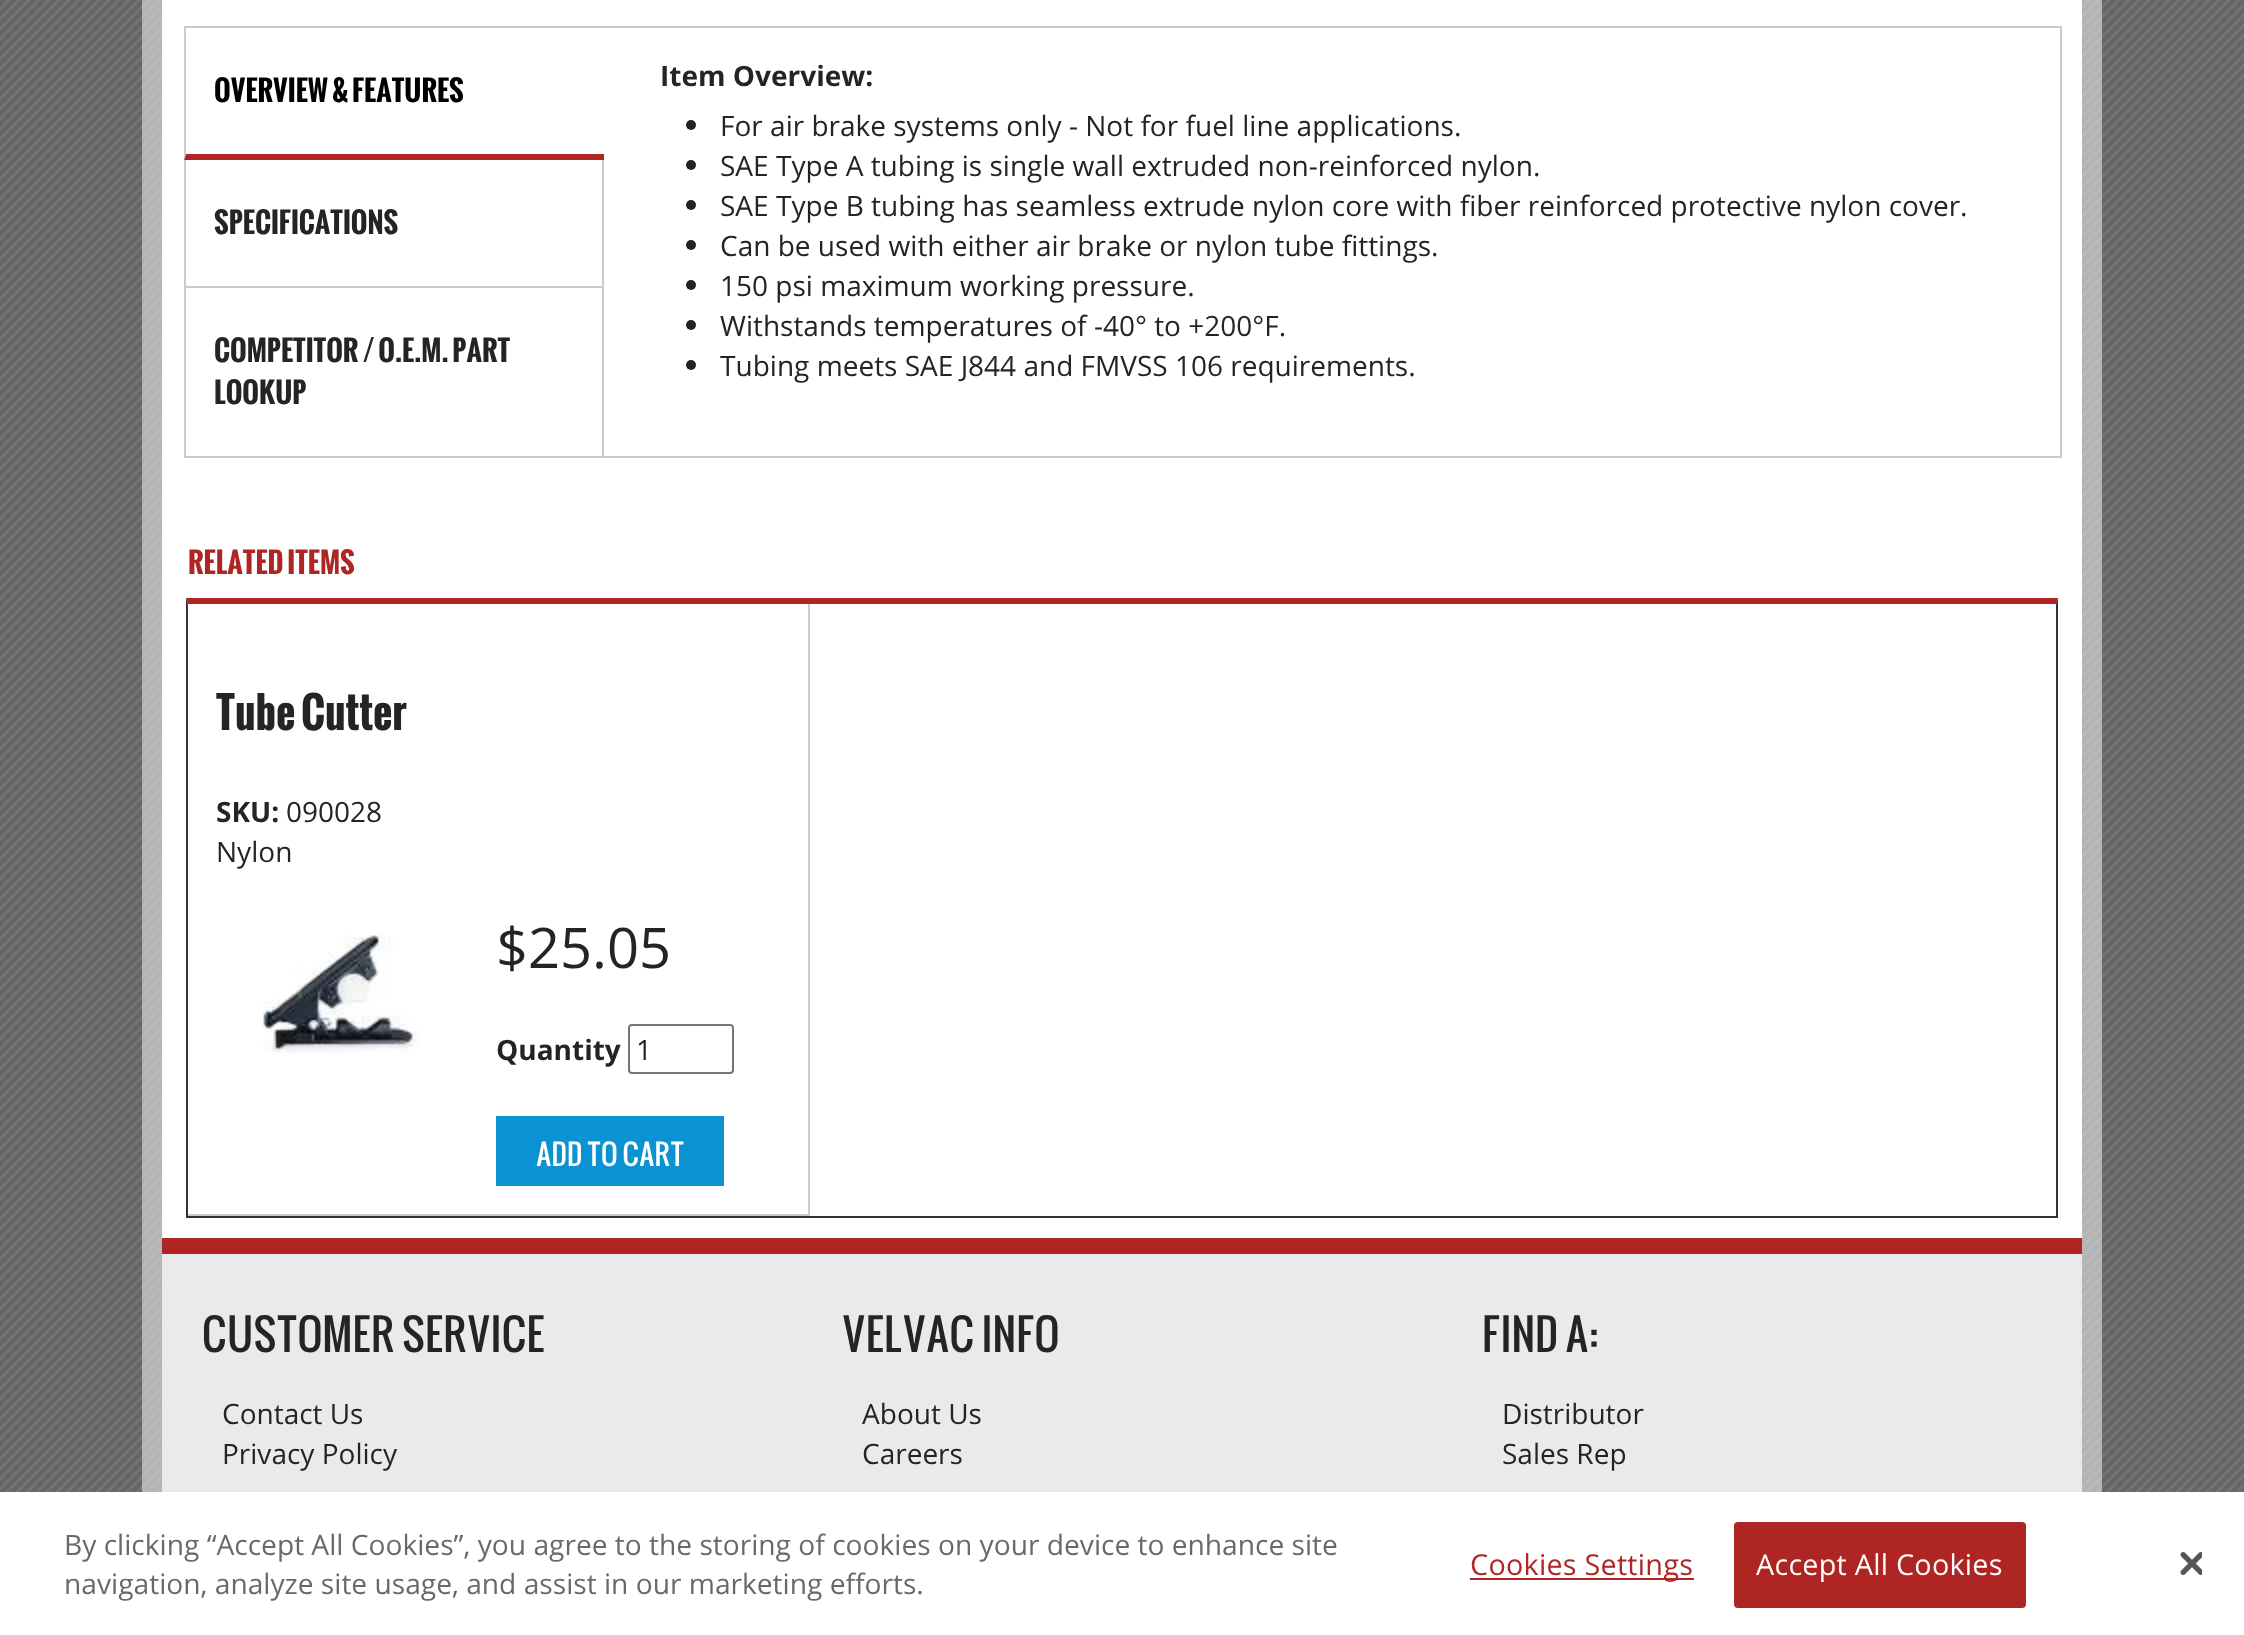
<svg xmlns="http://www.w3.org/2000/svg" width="2244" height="1635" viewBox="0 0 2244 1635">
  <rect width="100%" height="100%" fill="#fff"/>
  <image x="0" y="0" width="2244" height="1492" href="img/1.png"/>
  <path d="M142 0h1960v1492H142z" fill="#ffffff80"/>
  <path d="M162 0h1920v1238H162z" fill="#fff"/>
  <path d="M603 27h1458v430H603z" fill="none" stroke="#ccc" stroke-width="2"/>
  <path d="M184 26h420v2H184z" fill="#ccc"/>
  <path d="M602 28h2v132H602z" fill="#fff"/>
  <path d="M604 160H184L186 154H604Z" fill="#ae2524"/>
  <path d="M184 160V28H186V154Z" fill="#ccc"/>
  <path d="M184 286h420v2H184z" fill="#ccc"/>
  <path d="M184 160h2v128H184z" fill="#ccc"/>
  <path d="M184 456h420v2H184z" fill="#ccc"/>
  <path d="M184 288h2v170H184z" fill="#ccc"/>
  <circle cx="691" cy="125" r="5" fill="#242424"/>
  <circle cx="691" cy="165" r="5" fill="#242424"/>
  <circle cx="691" cy="205" r="5" fill="#242424"/>
  <circle cx="691" cy="245" r="5" fill="#242424"/>
  <circle cx="691" cy="285" r="5" fill="#242424"/>
  <circle cx="691" cy="325" r="5" fill="#242424"/>
  <circle cx="691" cy="365" r="5" fill="#242424"/>
  <path d="M186 598H2058L2056 604H188Z" fill="#ae2524"/>
  <path d="M2058 598V1218L2056 1216V604Z" fill="#333"/>
  <path d="M186 1216h1872v2H186z" fill="#333"/>
  <path d="M186 1218V598L188 604V1216Z" fill="#333"/>
  <path d="M808 604h2v612H808z" fill="#ccc"/>
  <path d="M188 1214h622v2H188z" fill="#ccc"/>
  <image x="261" y="935" width="159" height="119" href="img/2.png"/>
  <rect x="629" y="1025" width="104" height="48" rx="3" fill="none" stroke="#767676" stroke-width="2"/>
  <path d="M496 1116h228v70H496z" fill="#0b92d3"/>
  <path d="M162 1254h1920v238H162z" fill="#eaeaea"/>
  <path d="M162 1238h1920v16H162z" fill="#ae2524"/>
  <path d="M1470 1578h224v2H1470z" fill="#ae2524"/>
  <rect x="1735" y="1523" width="290" height="84" rx="3" fill="#ae2524" stroke="#ae2524" stroke-width="2"/>
  <image x="2180" y="1552" width="22" height="23" href="img/3.png"/>
  <text x="214" y="102" font-family="Oswald" font-size="28" font-weight="bold" fill="#000">OVERVIEW &amp; FEATURES</text>
  <g font-family="Oswald" font-size="28" font-weight="bold" fill="#242424">
    <text x="214" y="234">SPECIFICATIONS</text>
    <text x="214" y="362">COMPETITOR / O.E.M. PART</text>
    <text x="214" y="404">LOOKUP</text>
  </g>
  <text x="660" y="86" font-family="Open Sans" font-size="28" font-weight="bold" fill="#242424">Item Overview:</text>
  <g font-family="Open Sans" font-size="28" fill="#242424">
    <text x="720" y="136">For air brake systems only - Not for fuel line applications.</text>
    <text x="720" y="176">SAE Type A tubing is single wall extruded non-reinforced nylon.</text>
    <text x="720" y="216">SAE Type B tubing has seamless extrude nylon core with fiber reinforced protective nylon cover.</text>
    <text x="720" y="256">Can be used with either air brake or nylon tube fittings.</text>
    <text x="720" y="296">150 psi maximum working pressure.</text>
    <text x="720" y="336">Withstands temperatures of -40° to +200°F.</text>
    <text x="720" y="376">Tubing meets SAE J844 and FMVSS 106 requirements.</text>
  </g>
  <text x="188" y="574" font-family="Oswald" font-size="28" font-weight="bold" fill="#ae2524">RELATED ITEMS</text>
  <text x="216" y="730" font-family="Oswald" font-size="42" font-weight="bold" fill="#242424">Tube Cutter</text>
  <text x="216" y="822" font-family="Open Sans" font-size="28" font-weight="bold" fill="#242424">SKU:</text>
  <g font-family="Open Sans" font-size="28" fill="#242424">
    <text x="286" y="822">090028</text>
    <text x="216" y="862">Nylon</text>
  </g>
  <text x="496" y="968" font-family="Open Sans" font-size="56" fill="#242424">$25.05</text>
  <text x="496" y="1060" font-family="Open Sans" font-size="28" font-weight="bold" fill="#242424">Quantity</text>
  <text x="636" y="1060" font-family="Open Sans" font-size="28" fill="#242424">1</text>
  <text x="536" y="1166" font-family="Oswald" font-size="28" fill="#fff">ADD TO CART</text>
  <text x="202" y="1352" font-family="Oswald" font-size="42" fill="#242424">CUSTOMER SERVICE</text>
  <g font-family="Open Sans" font-size="28" fill="#242424">
    <text x="222" y="1424">Contact Us</text>
    <text x="222" y="1464">Privacy Policy</text>
  </g>
  <text x="842" y="1352" font-family="Oswald" font-size="42" fill="#242424">VELVAC INFO</text>
  <g font-family="Open Sans" font-size="28" fill="#242424">
    <text x="862" y="1424">About Us</text>
    <text x="862" y="1464">Careers</text>
  </g>
  <text x="1482" y="1352" font-family="Oswald" font-size="42" fill="#242424">FIND A:</text>
  <g font-family="Open Sans" font-size="28" fill="#242424">
    <text x="1502" y="1424">Distributor</text>
    <text x="1502" y="1464">Sales Rep</text>
  </g>
  <g font-family="Open Sans" font-size="28.15" fill="#696969">
    <text x="64" y="1555">By clicking “Accept All Cookies”, you agree to the storing of cookies on your device to enhance site</text>
    <text x="64" y="1594">navigation, analyze site usage, and assist in our marketing efforts.</text>
  </g>
  <text x="1470" y="1575" font-family="Open Sans" font-size="28.75" letter-spacing="0.25" fill="#ae2524">Cookies Settings</text>
  <text x="1756" y="1575" font-family="Open Sans" font-size="28.75" letter-spacing="0.25" fill="#fff">Accept All Cookies</text>
</svg>
